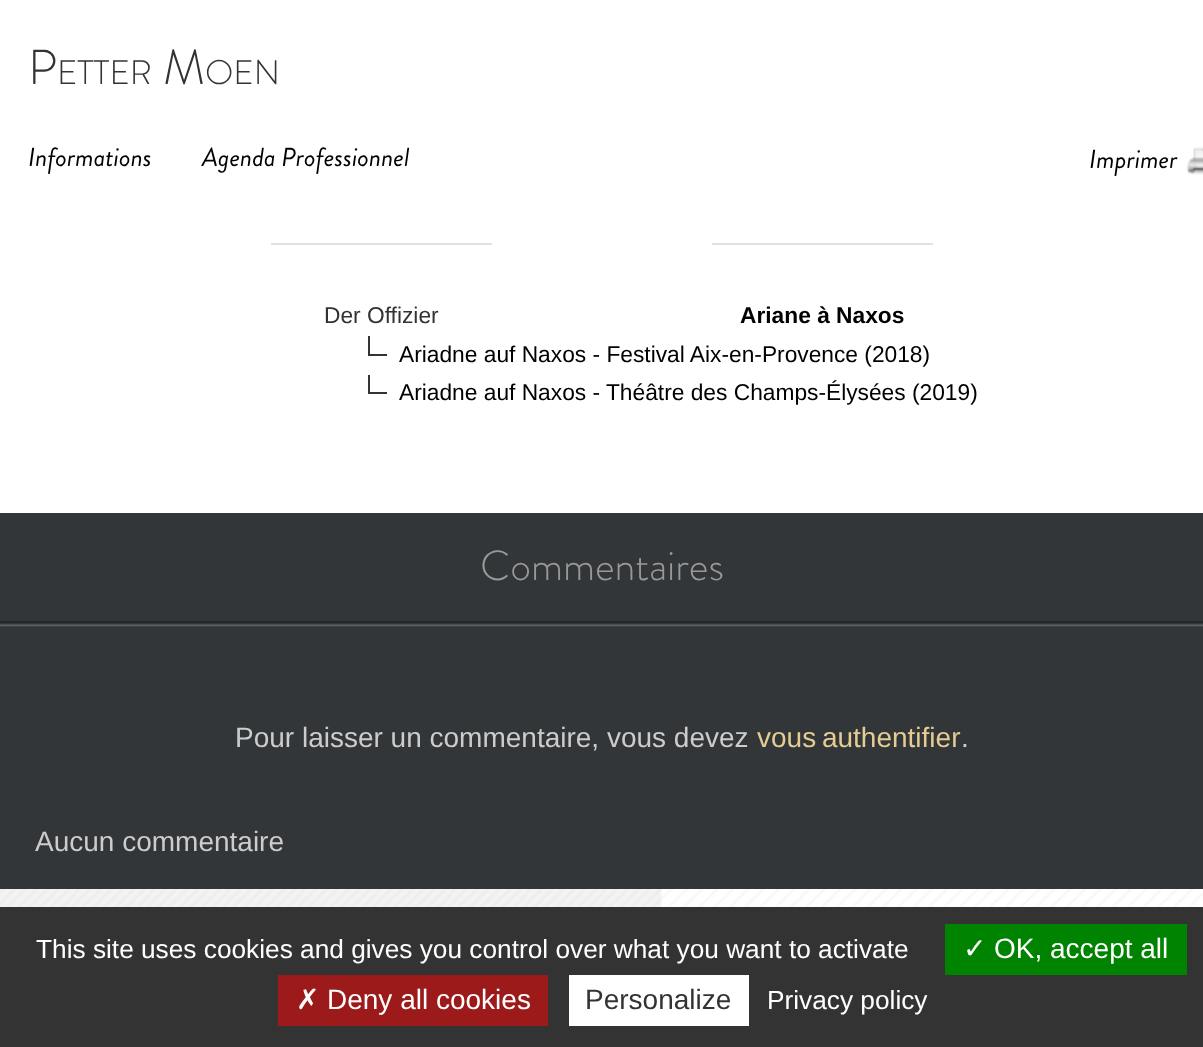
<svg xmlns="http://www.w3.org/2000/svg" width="1203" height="1047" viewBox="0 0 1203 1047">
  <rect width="100%" height="100%" fill="#fff"/>
  <image x="0" y="889" width="662" height="18" href="img/1.png"/>
  <image x="1186" y="147" width="17" height="28" href="img/2.png"/>
  <path d="M271 243h221v2H271z" fill="#e1e1e1"/>
  <path d="M712 243h221v2H712z" fill="#e1e1e1"/>
  <path d="M368 354h19v2H368z" fill="#333"/>
  <path d="M368 336h2v19H368z" fill="#333"/>
  <path d="M368 392h19v2H368z" fill="#333"/>
  <path d="M368 375h2v19H368z" fill="#333"/>
  <path d="M0 513h1203v376H0z" fill="#333638"/>
  <image x="0" y="621" width="1203" height="6" href="img/3.png"/>
  <image x="661" y="889" width="542" height="18" href="img/4.png"/>
  <path d="M0 907h1203v140H0z" fill="#333"/>
  <path d="M945 924h242v51H945z" fill="#008300"/>
  <path d="M278 975h270v51H278z" fill="#9c1a1a"/>
  <path d="M569 975h180v51H569z" fill="#fff"/>
  <text x="28" y="84" font-family="Brandon Grotesque" font-size="49" font-weight="300" fill="#333">P</text>
  <text x="57" y="84" font-family="Brandon Grotesque" font-size="34" font-weight="300" fill="#333">ETTER</text>
  <text x="163" y="84" font-family="Brandon Grotesque" font-size="49" font-weight="300" fill="#333">M</text>
  <text x="205" y="84" font-family="Brandon Grotesque" font-size="34" font-weight="300" fill="#333">OEN</text>
  <g font-family="Brandon Grotesque" font-size="26.25" font-style="italic" fill="#000">
    <text x="28" y="166">Informations</text>
    <text x="202" y="166">Agenda Professionnel</text>
    <text x="1089" y="168">Imprimer</text>
  </g>
  <text x="324" y="323" font-family="Liberation Sans" font-size="22.75" fill="#333">Der Offizier</text>
  <text x="740" y="323" font-family="Liberation Sans" font-size="22.75" font-weight="bold" fill="#000">Ariane à Naxos</text>
  <g font-family="Liberation Sans" font-size="22.75" fill="#000">
    <text x="399" y="362">Ariadne auf Naxos - Festival Aix-en-Provence (2018)</text>
    <text x="399" y="400">Ariadne auf Naxos - Théâtre des Champs-Élysées (2019)</text>
  </g>
  <text x="480" y="580" font-family="Brandon Grotesque" font-size="42" font-weight="300" fill="#999">Commentaires</text>
  <text x="235" y="747" font-family="Liberation Sans" font-size="28" fill="#ccc">Pour laisser un commentaire, vous devez</text>
  <text x="757" y="747" word-spacing="-2" font-family="Liberation Sans" font-size="28" fill="#e5cc93">vous authentifier</text>
  <g font-family="Liberation Sans" font-size="28" fill="#ccc">
    <text x="961" y="747">.</text>
    <text x="35" y="851">Aucun commentaire</text>
  </g>
  <text x="36" y="958" font-family="Liberation Sans" font-size="26.25" fill="#fff">This site uses cookies and gives you control over what you want to activate</text>
  <text x="963" y="958" font-family="DejaVu Sans" font-size="28" fill="#fff">✓</text>
  <text x="994" y="958" font-family="Liberation Sans" font-size="28" fill="#fff">OK, accept all</text>
  <text x="296" y="1009" font-family="DejaVu Sans" font-size="28" fill="#fff">✗</text>
  <text x="327" y="1009" font-family="Liberation Sans" font-size="28" fill="#fff">Deny all cookies</text>
  <text x="585" y="1009" font-family="Liberation Sans" font-size="28" fill="#333">Personalize</text>
  <text x="767" y="1009" font-family="Liberation Sans" font-size="26.25" fill="#fff">Privacy policy</text>
</svg>
